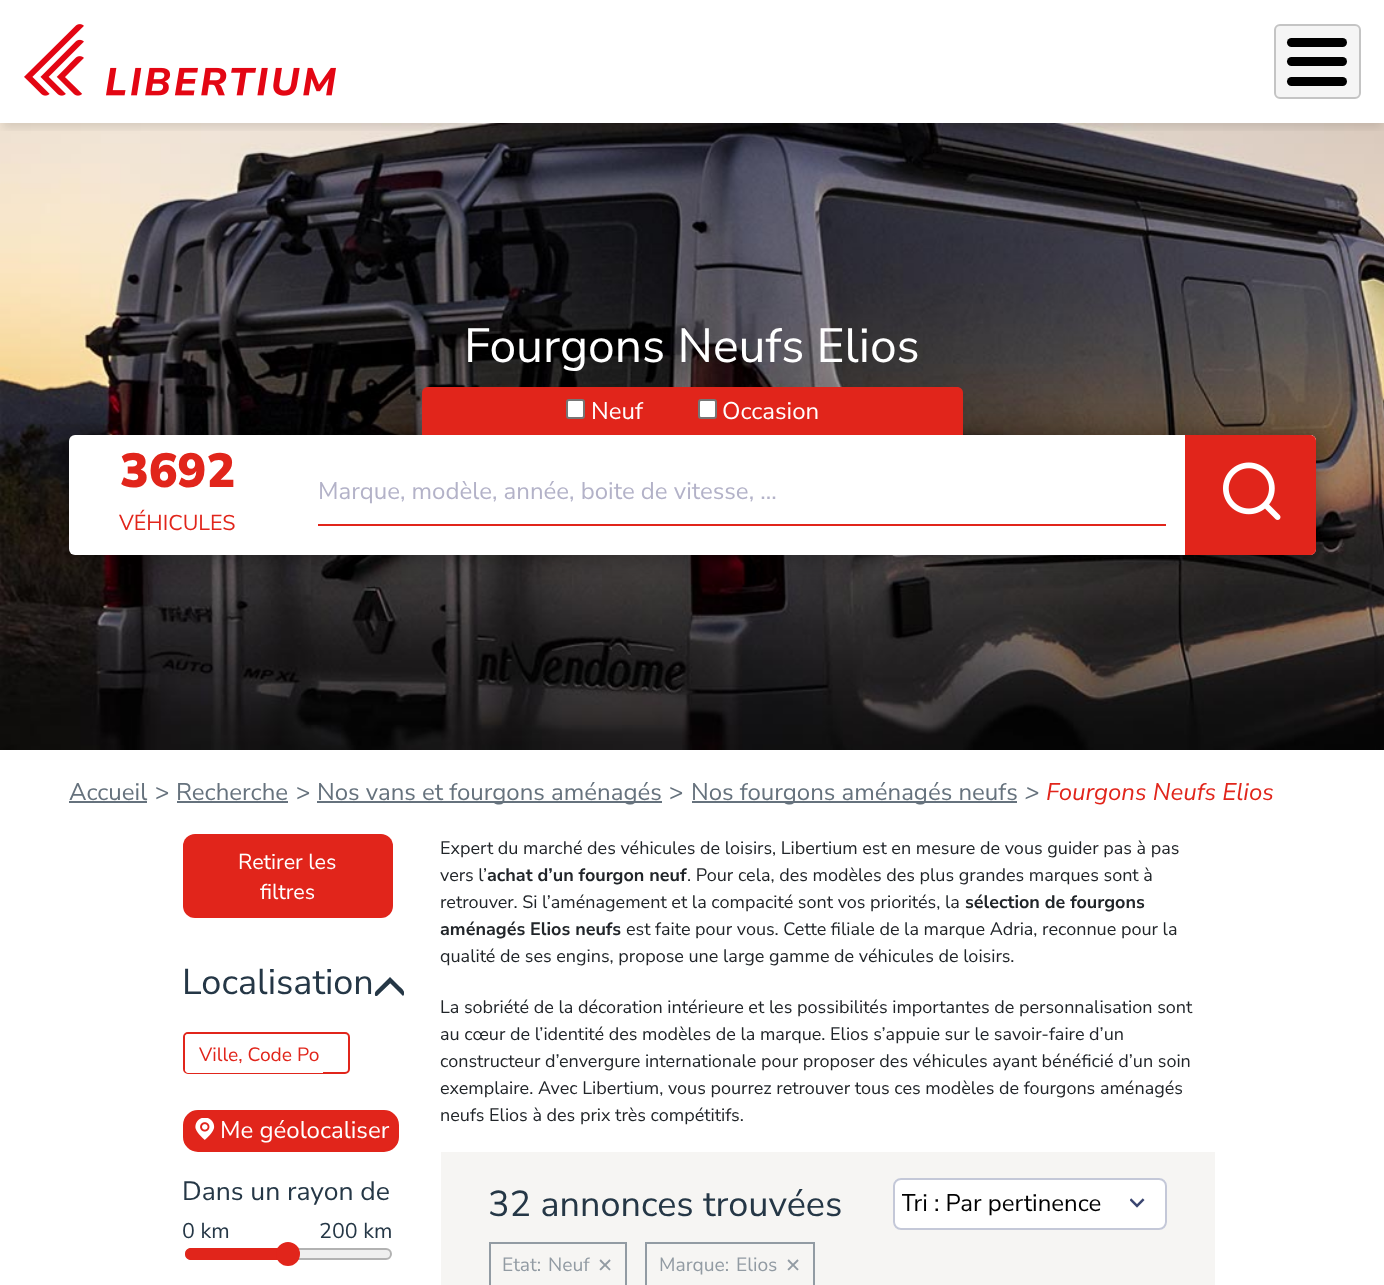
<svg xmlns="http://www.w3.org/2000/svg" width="1384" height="1285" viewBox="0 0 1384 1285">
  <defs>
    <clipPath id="clip1"><path d="M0 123h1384v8H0z"/></clipPath>
    <clipPath id="clip2"><path d="M374 977h30v19H374z"/></clipPath>
    <clipPath id="clip3"><path d="M902 1185h216v36H902z"/></clipPath>
  </defs>
  <rect width="100%" height="100%" fill="#fff"/>
  <image x="0" y="123" width="1384" height="627" href="img/2.png"/>
  <g clip-path="url(#clip1)">
    <path d="M3 11h1379v117H3z" fill="#0000001a" filter="blur(4px)"/>
  </g>
  <image x="24" y="24" width="312" height="72" href="img/1.png"/>
  <rect x="1275" y="25" width="85" height="73" rx="5" fill="#f5f5f5" stroke="#c4c4c4" stroke-width="2"/>
  <rect x="1287" y="38" width="60" height="9" rx="4.5" fill="#000"/>
  <rect x="1287" y="57" width="60" height="9" rx="4.5" fill="#000"/>
  <rect x="1287" y="77" width="60" height="9" rx="4.5" fill="#000"/>
  <rect x="71" y="437" width="1243" height="117" rx="5" fill="#00000066" filter="blur(15px)"/>
  <path d="M428 387H957C960.5 387 963 389.5 963 393V435H422V393C422 389.5 424.5 387 428 387Z" fill="#e1251b"/>
  <rect x="567" y="400" width="17" height="18" rx="2" fill="#fff" stroke="#767676" stroke-width="2"/>
  <rect x="699" y="400" width="17" height="18" rx="2" fill="#fff" stroke="#767676" stroke-width="2"/>
  <rect x="69" y="435" width="1247" height="120" rx="6" fill="#fff"/>
  <path d="M323 435H1310C1313.5 435 1316 437.5 1316 441V520C1316 523 1314 525 1311 525H323C320 525 318 523 318 520V440C318 437 320 435 323 435Z" fill="#fff"/>
  <path d="M318 524h848v2H318z" fill="#e1251b"/>
  <path d="M1185 435H1310C1313.5 435 1316 437.5 1316 441V549C1316 552.5 1313.5 555 1310 555H1185Z" fill="#e1251b"/>
  <image x="1223" y="462" width="58" height="58" href="img/3.png"/>
  <path d="M69 801h78v2H69z" fill="#66727d"/>
  <path d="M177 801h111v2H177z" fill="#66727d"/>
  <path d="M317 801h345v2H317z" fill="#66727d"/>
  <path d="M692 801h325v2H692z" fill="#66727d"/>
  <rect x="183" y="834" width="210" height="84" rx="12" fill="#e1251b"/>
  <g clip-path="url(#clip2)">
    <path d="M390.5 983.5H390L376 997C374.5 995.5 374.5 992.5 376 991L390 977L398 985C400.5 987.5 407 992 403 996Z" fill="#253746"/>
  </g>
  <rect x="184" y="1033" width="165" height="40" rx="4" fill="none" stroke="#e1251b" stroke-width="2"/>
  <path d="M188 1034H323V1073H188C186.5 1073 185 1071.5 185 1070V1037C185 1035.5 186.5 1034 188 1034Z" fill="#fff"/>
  <rect x="184" y="1111" width="214" height="40" rx="14" fill="#e1251b" stroke="#e1251b" stroke-width="2"/>
  <image x="195" y="1118" width="20" height="22" href="img/4.png"/>
  <rect x="186" y="1249" width="205" height="10" rx="5" fill="#efefef" stroke="#b2b2b2" stroke-width="2"/>
  <path d="M191 1248H288V1260H191C187.5 1260 185 1257.5 185 1254C185 1250.5 187.5 1248 191 1248Z" fill="#e1251b"/>
  <circle cx="288" cy="1254" r="12" fill="#e1251b"/>
  <path d="M441 1152h774v133H441z" fill="#f6f5f3"/>
  <rect x="893" y="1178" width="274" height="52" rx="8" fill="#fff"/>
  <image x="1130" y="1198" width="15" height="10" href="img/5.png"/>
  <rect x="894" y="1179" width="272" height="50" rx="7" fill="none" stroke="#c4c8d8" stroke-width="2"/>
  <path d="M490 1243h136v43H490z" fill="none" stroke="#929ba3" stroke-width="2"/>
  <path d="M646 1243h168v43H646z" fill="none" stroke="#929ba3" stroke-width="2"/>
  <text x="464" y="362" font-family="Nunito Sans" font-size="48" fill="#fff">Fourgons Neufs Elios</text>
  <g font-family="Nunito Sans" font-size="24" fill="#fff">
    <text x="591" y="419">Neuf</text>
    <text x="722" y="419">Occasion</text>
  </g>
  <text x="120" y="487" font-family="Nunito Sans" font-size="48" font-weight="900" fill="#e1251b">3692</text>
  <text x="119" y="530" font-family="Nunito Sans" font-size="21.5" fill="#e1251b">VÉHICULES</text>
  <text x="318" y="499" font-family="Nunito Sans" font-size="24" fill="#b3b2c8">Marque, modèle, année, boite de vitesse, ...</text>
  <g font-family="Nunito Sans" font-size="24" fill="#66727d">
    <text x="69" y="800">Accueil</text>
    <text x="155" y="800">&gt;</text>
    <text x="176" y="800">Recherche</text>
    <text x="296" y="800">&gt;</text>
    <text x="317" y="800">Nos vans et fourgons aménagés</text>
    <text x="669" y="800">&gt;</text>
    <text x="691" y="800">Nos fourgons aménagés neufs</text>
  </g>
  <text x="1025" y="800" font-family="Nunito Sans" font-size="24" font-style="italic" fill="#66727d">&gt;</text>
  <text x="1046" y="800" font-family="Nunito Sans" font-size="24" font-style="italic" fill="#e1251b">Fourgons Neufs Elios</text>
  <g font-family="Nunito Sans" font-size="21.5" fill="#fff">
    <text x="238" y="869">Retirer les</text>
    <text x="260" y="899">filtres</text>
  </g>
  <text x="182" y="994" font-family="Nunito Sans" font-size="36" fill="#253746">Localisation</text>
  <text x="199" y="1061" font-family="Nunito Sans" font-size="19.25" fill="#e1251b">Ville, Code Po</text>
  <text x="220" y="1138" font-family="Nunito Sans" font-size="24" fill="#fff">Me géolocaliser</text>
  <text x="182" y="1200" font-family="Nunito Sans" font-size="26.5" fill="#253746">Dans un rayon de</text>
  <g font-family="Nunito Sans" font-size="21.5" fill="#253746">
    <text x="182" y="1238">0 km</text>
    <text x="319" y="1238">200 km</text>
  </g>
  <g font-family="Nunito Sans" font-size="18" fill="#212529">
    <text x="440" y="854">Expert du marché des véhicules de loisirs, Libertium est en mesure de vous guider pas à pas</text>
    <text x="440" y="881">vers l’</text>
  </g>
  <text x="487" y="881" font-family="Nunito Sans" font-size="18" font-weight="bold" fill="#212529">achat d’un fourgon neuf</text>
  <g font-family="Nunito Sans" font-size="18" fill="#212529">
    <text x="687" y="881">. Pour cela, des modèles des plus grandes marques sont à</text>
    <text x="440" y="908">retrouver. Si l’aménagement et la compacité sont vos priorités, la</text>
  </g>
  <g font-family="Nunito Sans" font-size="18" font-weight="bold" fill="#212529">
    <text x="965" y="908">sélection de fourgons</text>
    <text x="440" y="935">aménagés Elios neufs</text>
  </g>
  <g font-family="Nunito Sans" font-size="18" fill="#212529">
    <text x="626" y="935">est faite pour vous. Cette filiale de la marque Adria, reconnue pour la</text>
    <text x="440" y="962">qualité de ses engins, propose une large gamme de véhicules de loisirs.</text>
    <text x="440" y="1013">La sobriété de la décoration intérieure et les possibilités importantes de personnalisation sont</text>
    <text x="440" y="1040">au cœur de l’identité des modèles de la marque. Elios s’appuie sur le savoir-faire d’un</text>
    <text x="440" y="1067">constructeur d’envergure internationale pour proposer des véhicules ayant bénéficié d’un soin</text>
    <text x="440" y="1094">exemplaire. Avec Libertium, vous pourrez retrouver tous ces modèles de fourgons aménagés</text>
    <text x="440" y="1121">neufs Elios à des prix très compétitifs.</text>
  </g>
  <text x="488" y="1216" font-family="Nunito Sans" font-size="36" fill="#253746">32 annonces trouvées</text>
  <g clip-path="url(#clip3)">
    <text x="901" y="1211" font-family="Nunito Sans" font-size="24" fill="#000">Tri : Par pertinence</text>
  </g>
  <g font-family="Nunito Sans" font-size="19.25" fill="#929ba3">
    <text x="502" y="1271">Etat:</text>
    <text x="548" y="1271">Neuf</text>
  </g>
  <text x="597" y="1272" font-family="DejaVu Sans" font-size="19.25" fill="#929ba3">✕</text>
  <g font-family="Nunito Sans" font-size="19.25" fill="#929ba3">
    <text x="659" y="1271">Marque:</text>
    <text x="736" y="1271">Elios</text>
  </g>
  <text x="785" y="1272" font-family="DejaVu Sans" font-size="19.25" fill="#929ba3">✕</text>
</svg>
